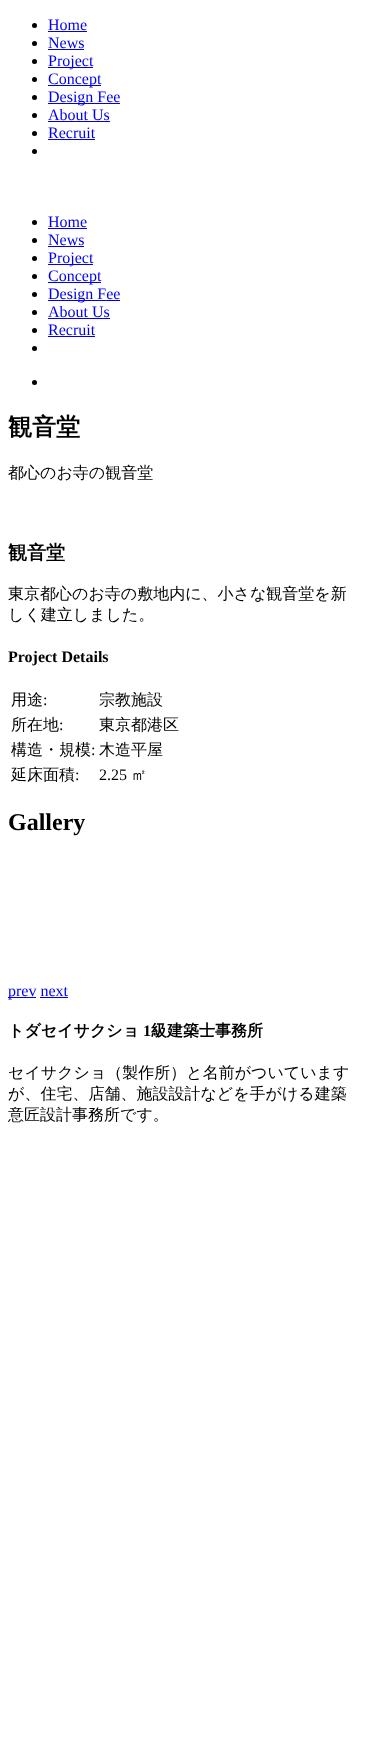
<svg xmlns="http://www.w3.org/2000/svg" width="365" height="1747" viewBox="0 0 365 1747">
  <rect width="100%" height="100%" fill="#fff"/>
  <circle cx="34.5" cy="25.5" r="2.5" fill="#000"/>
  <path d="M48 31h39v1H48z" fill="#00e"/>
  <circle cx="34.5" cy="43.5" r="2.5" fill="#000"/>
  <path d="M48 49h36v1H48z" fill="#00e"/>
  <circle cx="34.5" cy="61.5" r="2.5" fill="#000"/>
  <path d="M48 67h45v1H48z" fill="#00e"/>
  <circle cx="34.5" cy="79.5" r="2.5" fill="#000"/>
  <path d="M48 85h53v1H48z" fill="#00e"/>
  <circle cx="34.5" cy="97.5" r="2.5" fill="#000"/>
  <path d="M48 103h72v1H48z" fill="#00e"/>
  <circle cx="34.5" cy="115.5" r="2.5" fill="#000"/>
  <path d="M48 121h62v1H48z" fill="#00e"/>
  <circle cx="34.5" cy="133.5" r="2.5" fill="#000"/>
  <path d="M48 139h47v1H48z" fill="#00e"/>
  <circle cx="34.5" cy="151.5" r="2.5" fill="#000"/>
  <circle cx="34.5" cy="222.5" r="2.5" fill="#000"/>
  <path d="M48 228h39v1H48z" fill="#00e"/>
  <circle cx="34.5" cy="240.5" r="2.5" fill="#000"/>
  <path d="M48 246h36v1H48z" fill="#00e"/>
  <circle cx="34.5" cy="258.5" r="2.5" fill="#000"/>
  <path d="M48 264h45v1H48z" fill="#00e"/>
  <circle cx="34.5" cy="276.5" r="2.5" fill="#000"/>
  <path d="M48 282h53v1H48z" fill="#00e"/>
  <circle cx="34.5" cy="294.5" r="2.5" fill="#000"/>
  <path d="M48 300h72v1H48z" fill="#00e"/>
  <circle cx="34.5" cy="312.5" r="2.5" fill="#000"/>
  <path d="M48 318h62v1H48z" fill="#00e"/>
  <circle cx="34.5" cy="330.5" r="2.5" fill="#000"/>
  <path d="M48 336h47v1H48z" fill="#00e"/>
  <circle cx="34.5" cy="348.5" r="2.5" fill="#000"/>
  <circle cx="34.5" cy="382.5" r="2.5" fill="#000"/>
  <path d="M8 997h28v1H8z" fill="#00e"/>
  <path d="M40 997h28v1H40z" fill="#00e"/>
  <g font-family="Liberation Serif" font-size="16" fill="#00e">
    <text x="48" y="30">Home</text>
    <text x="48" y="48">News</text>
    <text x="48" y="66">Project</text>
    <text x="48" y="84">Concept</text>
    <text x="48" y="102">Design Fee</text>
    <text x="48" y="120">About Us</text>
    <text x="48" y="138">Recruit</text>
    <text x="48" y="227">Home</text>
    <text x="48" y="245">News</text>
    <text x="48" y="263">Project</text>
    <text x="48" y="281">Concept</text>
    <text x="48" y="299">Design Fee</text>
    <text x="48" y="317">About Us</text>
    <text x="48" y="335">Recruit</text>
  </g>
  <text x="8" y="435" font-family="WenQuanYi Zen Hei" font-size="24" font-weight="bold" fill="#000">観音堂</text>
  <text x="8" y="478" font-family="WenQuanYi Zen Hei" font-size="16" font-weight="500" fill="#000">都心のお寺の観音堂</text>
  <text x="8" y="559" font-family="WenQuanYi Zen Hei" font-size="19" font-weight="bold" fill="#000">観音堂</text>
  <g font-family="WenQuanYi Zen Hei" font-size="16" font-weight="500" fill="#000">
    <text x="8" y="599">東京都心のお寺の敷地内に、小さな観音堂を新</text>
    <text x="8" y="620">しく建立しました。</text>
  </g>
  <text x="8" y="662" font-family="Liberation Serif" font-size="16" font-weight="bold" fill="#000">Project Details</text>
  <text x="11" y="705" font-family="WenQuanYi Zen Hei" font-size="16" font-weight="500" fill="#000">用途</text>
  <text x="43" y="705" font-family="Liberation Serif" font-size="16" fill="#000">:</text>
  <g font-family="WenQuanYi Zen Hei" font-size="16" font-weight="500" fill="#000">
    <text x="99" y="705">宗教施設</text>
    <text x="11" y="730">所在地</text>
  </g>
  <text x="59" y="730" font-family="Liberation Serif" font-size="16" fill="#000">:</text>
  <g font-family="WenQuanYi Zen Hei" font-size="16" font-weight="500" fill="#000">
    <text x="99" y="730">東京都港区</text>
    <text x="11" y="755">構造・規模</text>
  </g>
  <text x="91" y="755" font-family="Liberation Serif" font-size="16" fill="#000">:</text>
  <g font-family="WenQuanYi Zen Hei" font-size="16" font-weight="500" fill="#000">
    <text x="99" y="755">木造平屋</text>
    <text x="11" y="780">延床面積</text>
  </g>
  <g font-family="Liberation Serif" font-size="16" fill="#000">
    <text x="75" y="780">:</text>
    <text x="99" y="780">2.25</text>
  </g>
  <text x="131" y="780" font-family="WenQuanYi Zen Hei" font-size="16" font-weight="500" fill="#000">㎡</text>
  <text x="8" y="830" font-family="Liberation Serif" font-size="24" font-weight="bold" fill="#000">Gallery</text>
  <text x="8" y="996" font-family="Liberation Serif" font-size="16" fill="#00e">prev next</text>
  <text x="8" y="1036" font-family="WenQuanYi Zen Hei" font-size="16" font-weight="bold" fill="#000">トダセイサクショ</text>
  <text x="143" y="1036" font-family="Liberation Serif" font-size="16" font-weight="bold" fill="#000">1</text>
  <text x="151" y="1036" font-family="WenQuanYi Zen Hei" font-size="16" font-weight="bold" fill="#000">級建築士事務所</text>
  <g font-family="WenQuanYi Zen Hei" font-size="16" font-weight="500" fill="#000">
    <text x="8" y="1078">セイサクショ（製作所）と名前がついています</text>
    <text x="8" y="1099">が、住宅、店舗、施設設計などを手がける建築</text>
    <text x="8" y="1120">意匠設計事務所です。</text>
  </g>
</svg>
